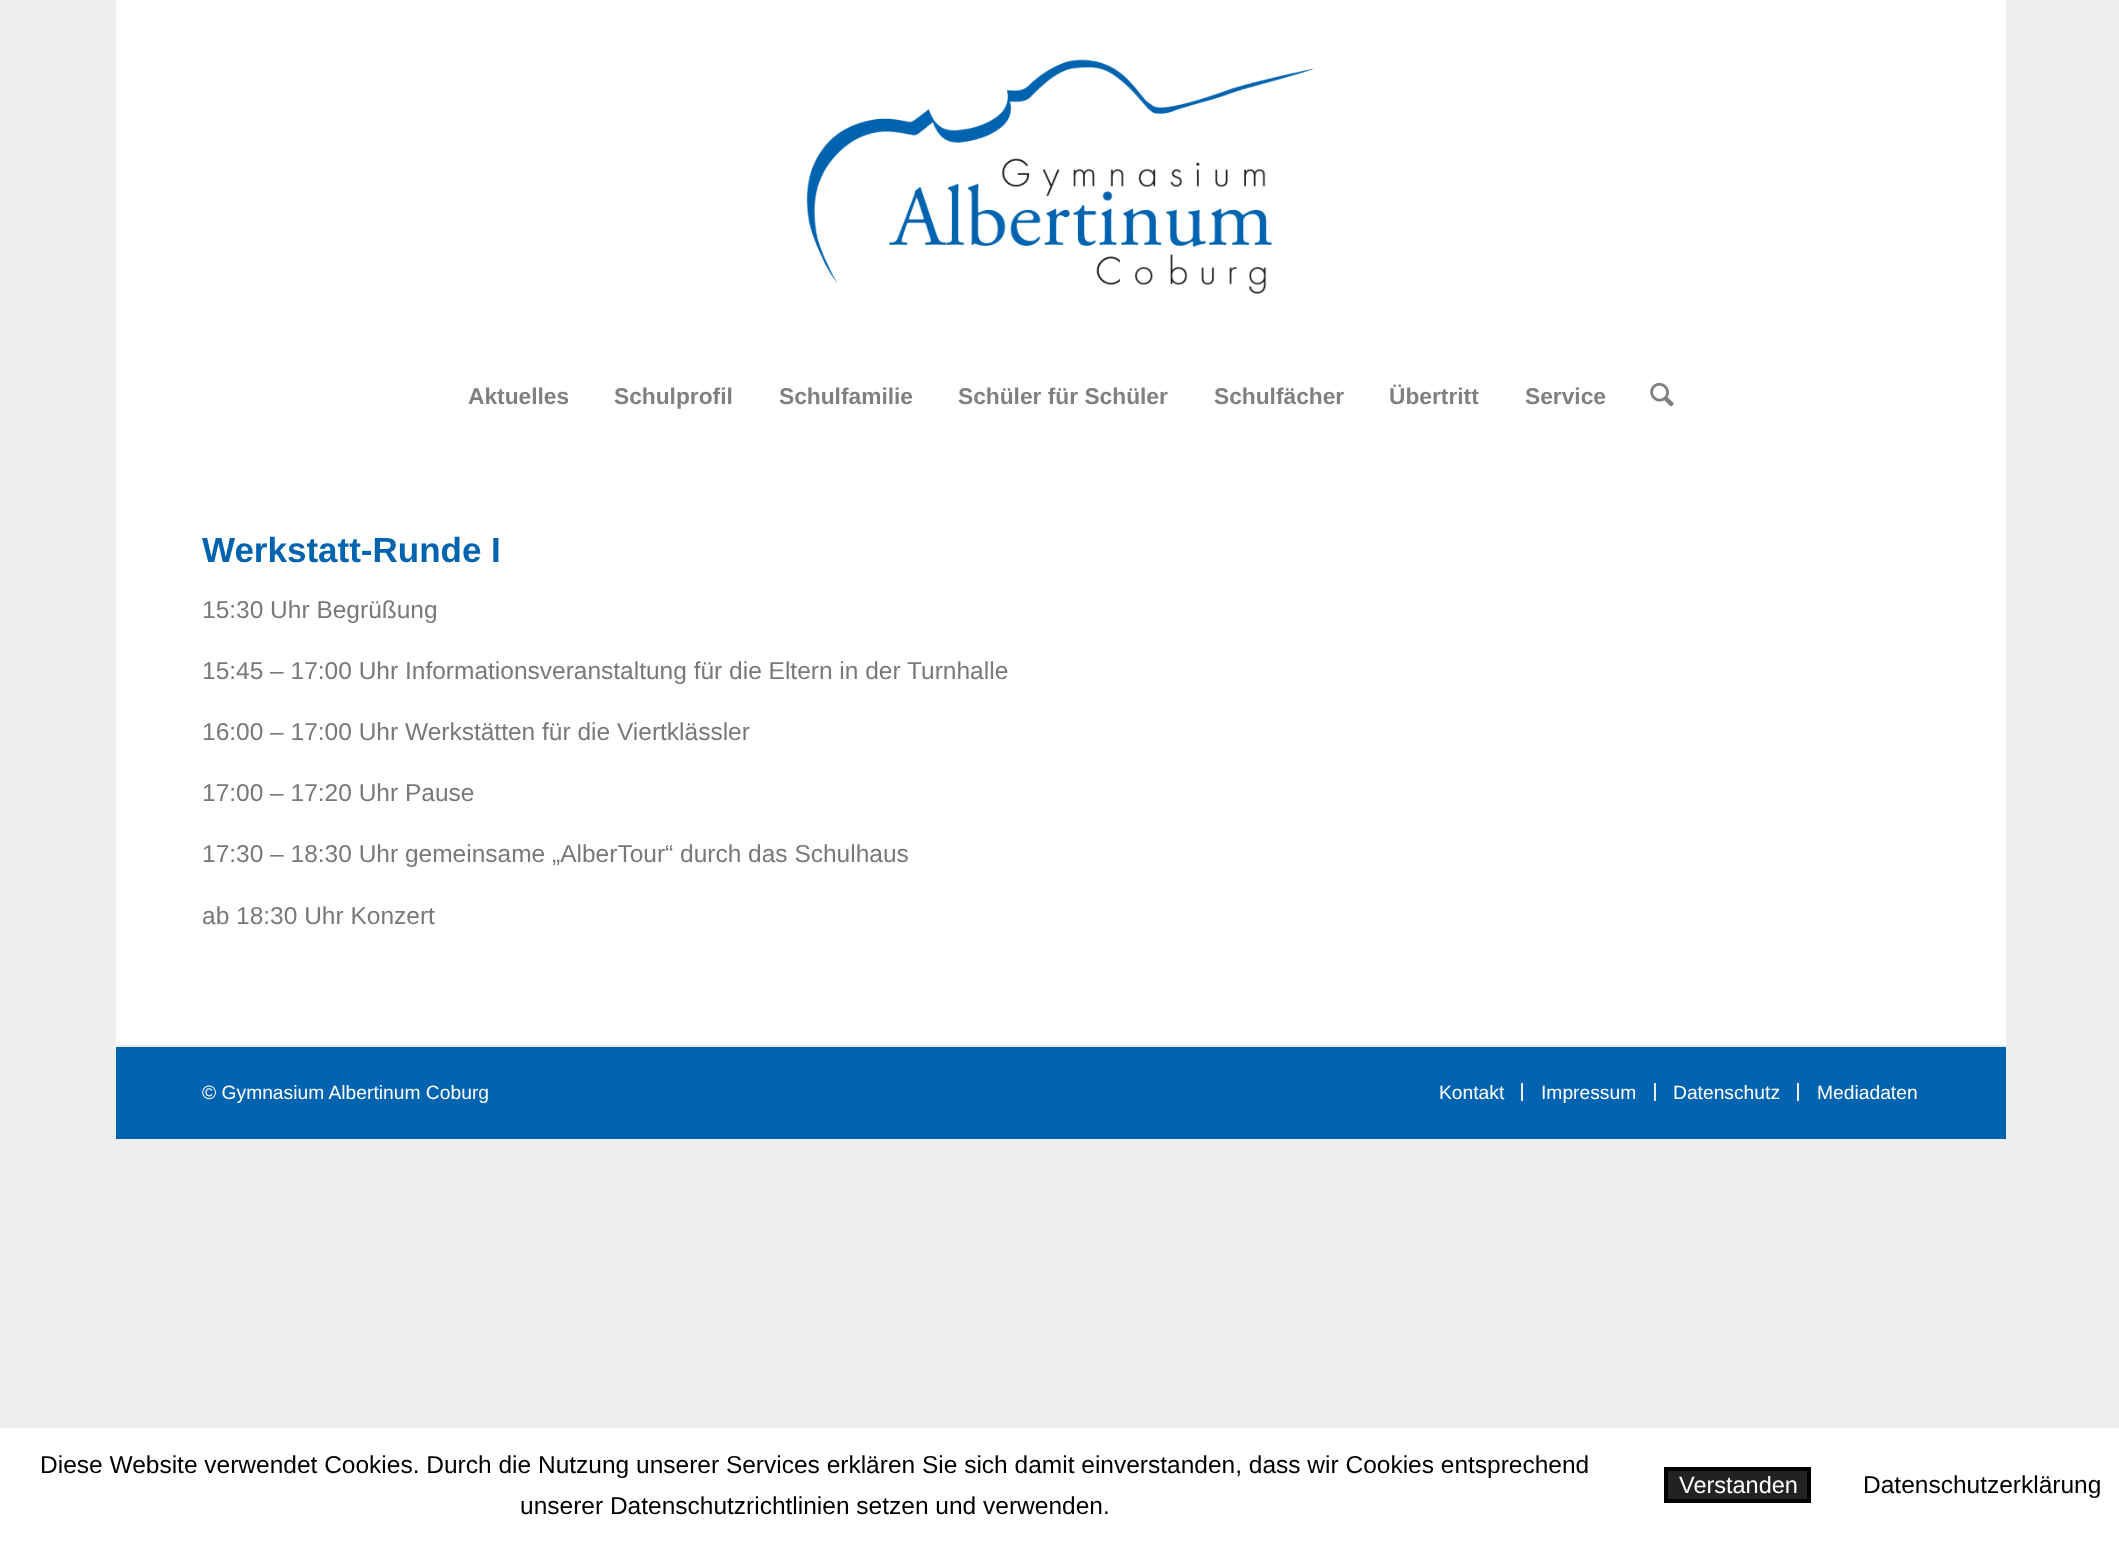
<svg xmlns="http://www.w3.org/2000/svg" width="2119" height="1542" viewBox="0 0 2119 1542">
  <rect width="100%" height="100%" fill="#eee"/>
  <path d="M116 0h1890v1045H116z" fill="#fff"/>
  <image x="806" y="59" width="509" height="235" href="img/1.png"/>
  <image x="1650" y="382" width="24" height="25" href="img/2.png"/>
  <path d="M116 1047h1890v92H116z" fill="#0063af"/>
  <path d="M116 1045h1890v2H116z" fill="#ebebeb"/>
  <path d="M1521 1083h2v18H1521z" fill="#ebebeb"/>
  <path d="M1654 1083h2v18H1654z" fill="#ebebeb"/>
  <path d="M1797 1083h2v18H1797z" fill="#ebebeb"/>
  <path d="M0 1428h2119v114H0z" fill="#fff"/>
  <path d="M1666 1469h143v32H1666z" fill="#222" stroke="#000" stroke-width="4"/>
  <g font-family="Liberation Sans" font-size="22.75" font-weight="bold" fill="#808080">
    <text x="468" y="404">Aktuelles</text>
    <text x="614" y="404">Schulprofil</text>
    <text x="779" y="404">Schulfamilie</text>
    <text x="958" y="404">Schüler für Schüler</text>
    <text x="1214" y="404">Schulfächer</text>
    <text x="1389" y="404">Übertritt</text>
    <text x="1525" y="404">Service</text>
  </g>
  <text x="202" y="562" font-family="Liberation Sans" font-size="35" font-weight="bold" fill="#0063af">Werkstatt-Runde I</text>
  <g font-family="Liberation Sans" font-size="24.5" fill="#7a797a">
    <text x="202" y="618">15:30 Uhr Begrüßung</text>
    <text x="202" y="679">15:45 – 17:00 Uhr Informationsveranstaltung für die Eltern in der Turnhalle</text>
    <text x="202" y="740">16:00 – 17:00 Uhr Werkstätten für die Viertklässler</text>
    <text x="202" y="801">17:00 – 17:20 Uhr Pause</text>
    <text x="202" y="862">17:30 – 18:30 Uhr gemeinsame „AlberTour“ durch das Schulhaus</text>
    <text x="202" y="924">ab 18:30 Uhr Konzert</text>
  </g>
  <g font-family="Liberation Sans" font-size="19.25" fill="#fff">
    <text x="202" y="1099">© Gymnasium Albertinum Coburg</text>
    <text x="1439" y="1099">Kontakt</text>
    <text x="1541" y="1099">Impressum</text>
    <text x="1673" y="1099">Datenschutz</text>
    <text x="1817" y="1099">Mediadaten</text>
  </g>
  <g font-family="Liberation Sans" font-size="24.5" fill="#000">
    <text x="40" y="1473">Diese Website verwendet Cookies. Durch die Nutzung unserer Services erklären Sie sich damit einverstanden, dass wir Cookies entsprechend</text>
    <text x="520" y="1514">unserer Datenschutzrichtlinien setzen und verwenden.</text>
  </g>
  <text x="1679" y="1493" font-family="Liberation Sans" font-size="23.5" fill="#fff">Verstanden</text>
  <text x="1863" y="1493" font-family="Liberation Sans" font-size="24.5" fill="#000">Datenschutzerklärung</text>
</svg>
